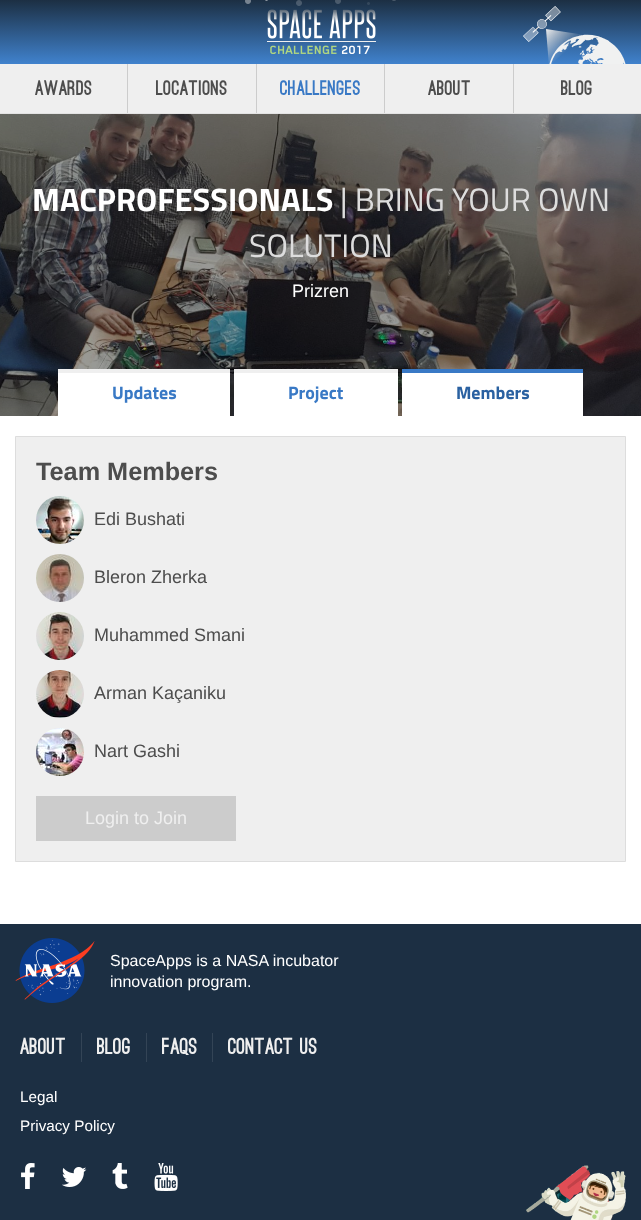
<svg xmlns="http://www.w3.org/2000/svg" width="641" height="1220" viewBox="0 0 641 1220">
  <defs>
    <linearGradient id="g1" gradientUnits="userSpaceOnUse" x1="321" y1="64" x2="321" y2="0"><stop offset="0" stop-color="#4082cd"/><stop offset="1" stop-color="#1c2f43"/></linearGradient>
  </defs>
  <rect width="100%" height="100%" fill="#fff"/>
  <path d="M0 64h641v49H0z" fill="#efefef"/>
  <path d="M0 113h641v1H0z" fill="#e3e3e3"/>
  <path d="M0 0h641v64H0z" fill="url(#g1)"/>
  <image x="245" y="0" width="151" height="6" href="img/1.png"/>
  <image x="267" y="9" width="109" height="45" href="img/2.png"/>
  <image x="523" y="6" width="103" height="58" href="img/3.png"/>
  <path d="M127 64h1v49H127z" fill="#ccc"/>
  <path d="M256 64h1v49H256z" fill="#ccc"/>
  <path d="M384 64h1v49H384z" fill="#ccc"/>
  <path d="M513 64h1v49H513z" fill="#ccc"/>
  <image x="0" y="114" width="641" height="302" href="img/4.png"/>
  <path d="M58 373h172v43H58z" fill="#fff"/>
  <path d="M58 369h172v4H58z" fill="#efefef"/>
  <path d="M234 373h164v43H234z" fill="#fff"/>
  <path d="M234 369h164v4H234z" fill="#efefef"/>
  <path d="M402 373h181v43H402z" fill="#fff"/>
  <path d="M402 369h181v4H402z" fill="#3979c5"/>
  <path d="M15.5 436.5h610v425H15.5z" fill="#efefef" stroke="#ddd"/>
  <image x="36" y="496" width="48" height="48" href="img/5.png"/>
  <image x="36" y="554" width="48" height="48" href="img/6.png"/>
  <image x="36" y="612" width="48" height="48" href="img/7.png"/>
  <image x="36" y="670" width="48" height="48" href="img/8.png"/>
  <image x="36" y="728" width="48" height="48" href="img/9.png"/>
  <path d="M36 796h200v45H36z" fill="#ccc"/>
  <path d="M0 924h641v296H0z" fill="#1c2f43"/>
  <image x="15" y="938" width="80" height="65" href="img/10.png"/>
  <path d="M81 1033h1v29H81z" fill="#334456"/>
  <path d="M146 1033h1v29H146z" fill="#334456"/>
  <path d="M212 1033h1v29H212z" fill="#334456"/>
  <image x="21" y="1163" width="14" height="26" href="img/11.png"/>
  <image x="62" y="1167" width="25" height="20" href="img/12.png"/>
  <image x="112" y="1163" width="16" height="26" href="img/13.png"/>
  <image x="154" y="1163" width="24" height="28" href="img/14.png"/>
  <image x="526" y="1165" width="100" height="55" href="img/15.png"/>
  <g font-family="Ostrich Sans" font-size="20" font-weight="900" letter-spacing="0.25" fill="#4d4d4d">
    <text x="35" y="95">Awards</text>
    <text x="156" y="95">Locations</text>
  </g>
  <text x="280" y="95" font-family="Ostrich Sans" font-size="20" font-weight="900" letter-spacing="0.25" fill="#3979c5">Challenges</text>
  <g font-family="Ostrich Sans" font-size="20" font-weight="900" letter-spacing="0.25" fill="#4d4d4d">
    <text x="428" y="95">About</text>
    <text x="561" y="95">Blog</text>
  </g>
  <text x="32" y="211" font-family="Titillium Web" font-size="32.5" font-weight="bold" fill="#fff">MACPROFESSIONALS</text>
  <g font-family="Titillium Web" font-size="32.5" fill="#ddd">
    <text x="340" y="211">| BRING YOUR OWN</text>
    <text x="249" y="257">SOLUTION</text>
  </g>
  <text x="292" y="297" font-family="Liberation Sans" font-size="18" fill="#fff">Prizren</text>
  <g font-family="Titillium Web" font-size="18" font-weight="bold" fill="#3979c5">
    <text x="112" y="399">Updates</text>
    <text x="288" y="399">Project</text>
  </g>
  <text x="456" y="399" font-family="Titillium Web" font-size="18" font-weight="bold" fill="#2a61a1">Members</text>
  <text x="36" y="480" font-family="Liberation Sans" font-size="25.25" font-weight="bold" fill="#4d4d4d">Team Members</text>
  <g font-family="Liberation Sans" font-size="18" fill="#4d4d4d">
    <text x="94" y="525">Edi Bushati</text>
    <text x="94" y="583">Bleron Zherka</text>
    <text x="94" y="641">Muhammed Smani</text>
    <text x="94" y="699">Arman Kaçaniku</text>
    <text x="94" y="757">Nart Gashi</text>
  </g>
  <text x="85" y="824" font-family="Liberation Sans" font-size="18" fill="#efefef">Login to Join</text>
  <g font-family="Liberation Sans" font-size="16" fill="#fff">
    <text x="110" y="966">SpaceApps is a NASA incubator</text>
    <text x="110" y="987">innovation program.</text>
  </g>
  <g font-family="Ostrich Sans" font-size="22" font-weight="900" fill="#efefef">
    <text x="20" y="1054">About</text>
    <text x="97" y="1054">Blog</text>
    <text x="162" y="1054">FAQs</text>
    <text x="228" y="1054">Contact Us</text>
  </g>
  <g font-family="Liberation Sans" font-size="15.25" fill="#fff">
    <text x="20" y="1102">Legal</text>
    <text x="20" y="1131">Privacy Policy</text>
  </g>
</svg>
